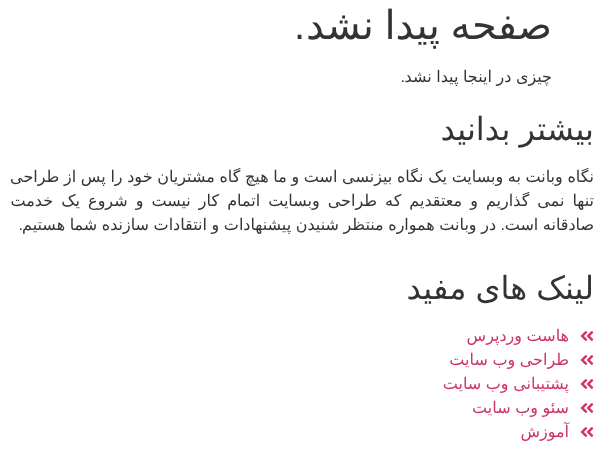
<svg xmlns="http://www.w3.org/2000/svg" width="604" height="452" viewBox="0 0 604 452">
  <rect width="100%" height="100%" fill="#fff"/>
  <image x="580" y="331" width="14" height="10" href="img/1.png"/>
  <image x="580" y="355" width="14" height="10" href="img/1.png"/>
  <image x="580" y="379" width="14" height="10" href="img/1.png"/>
  <image x="580" y="403" width="14" height="10" href="img/1.png"/>
  <image x="580" y="427" width="14" height="10" href="img/1.png"/>
  <text x="552" y="39" word-spacing="-2" font-family="DejaVu Sans" font-size="40" direction="rtl" fill="#333">صفحه پیدا نشد</text>
  <text x="305" y="39" font-family="Liberation Sans" font-size="40" direction="rtl" fill="#333">.</text>
  <text x="552" y="82" word-spacing="-0.5" font-family="DejaVu Sans" font-size="16" direction="rtl" fill="#333">چیزی در اینجا پیدا نشد</text>
  <text x="405" y="82" font-family="Liberation Sans" font-size="16" direction="rtl" fill="#333">.</text>
  <text x="594" y="140" word-spacing="-1" font-family="DejaVu Sans" font-size="32" direction="rtl" fill="#333">بیشتر بدانید</text>
  <g font-family="DejaVu Sans" font-size="16" direction="rtl" fill="#333">
    <text x="594" y="182" word-spacing="-0.4">نگاه وبانت به وبسایت یک نگاه بیزنسی است و ما هیچ گاه مشتریان خود را پس از طراحی</text>
    <text x="594" y="206" word-spacing="3">تنها نمی گذاریم و معتقدیم که طراحی وبسایت اتمام کار نیست و شروع یک خدمت</text>
    <text x="594" y="230" word-spacing="-0.5">صادقانه است</text>
  </g>
  <text x="505" y="230" font-family="Liberation Sans" font-size="16" direction="rtl" fill="#333">.</text>
  <text x="496" y="230" word-spacing="-0.5" font-family="DejaVu Sans" font-size="16" direction="rtl" fill="#333">در وبانت همواره منتظر شنیدن پیشنهادات و انتقادات سازنده شما هستیم</text>
  <text x="23" y="230" font-family="Liberation Sans" font-size="16" direction="rtl" fill="#333">.</text>
  <text x="594" y="299" word-spacing="-1" font-family="DejaVu Sans" font-size="32" direction="rtl" fill="#333">لینک های مفید</text>
  <g font-family="DejaVu Sans" font-size="16" direction="rtl" fill="#c36">
    <text x="569" y="341" word-spacing="-0.5">هاست وردپرس</text>
    <text x="569" y="365" word-spacing="-0.5">طراحی وب سایت</text>
    <text x="569" y="389" word-spacing="-0.5">پشتیبانی وب سایت</text>
    <text x="569" y="413" word-spacing="-0.5">سئو وب سایت</text>
    <text x="569" y="437">آموزش</text>
  </g>
</svg>
